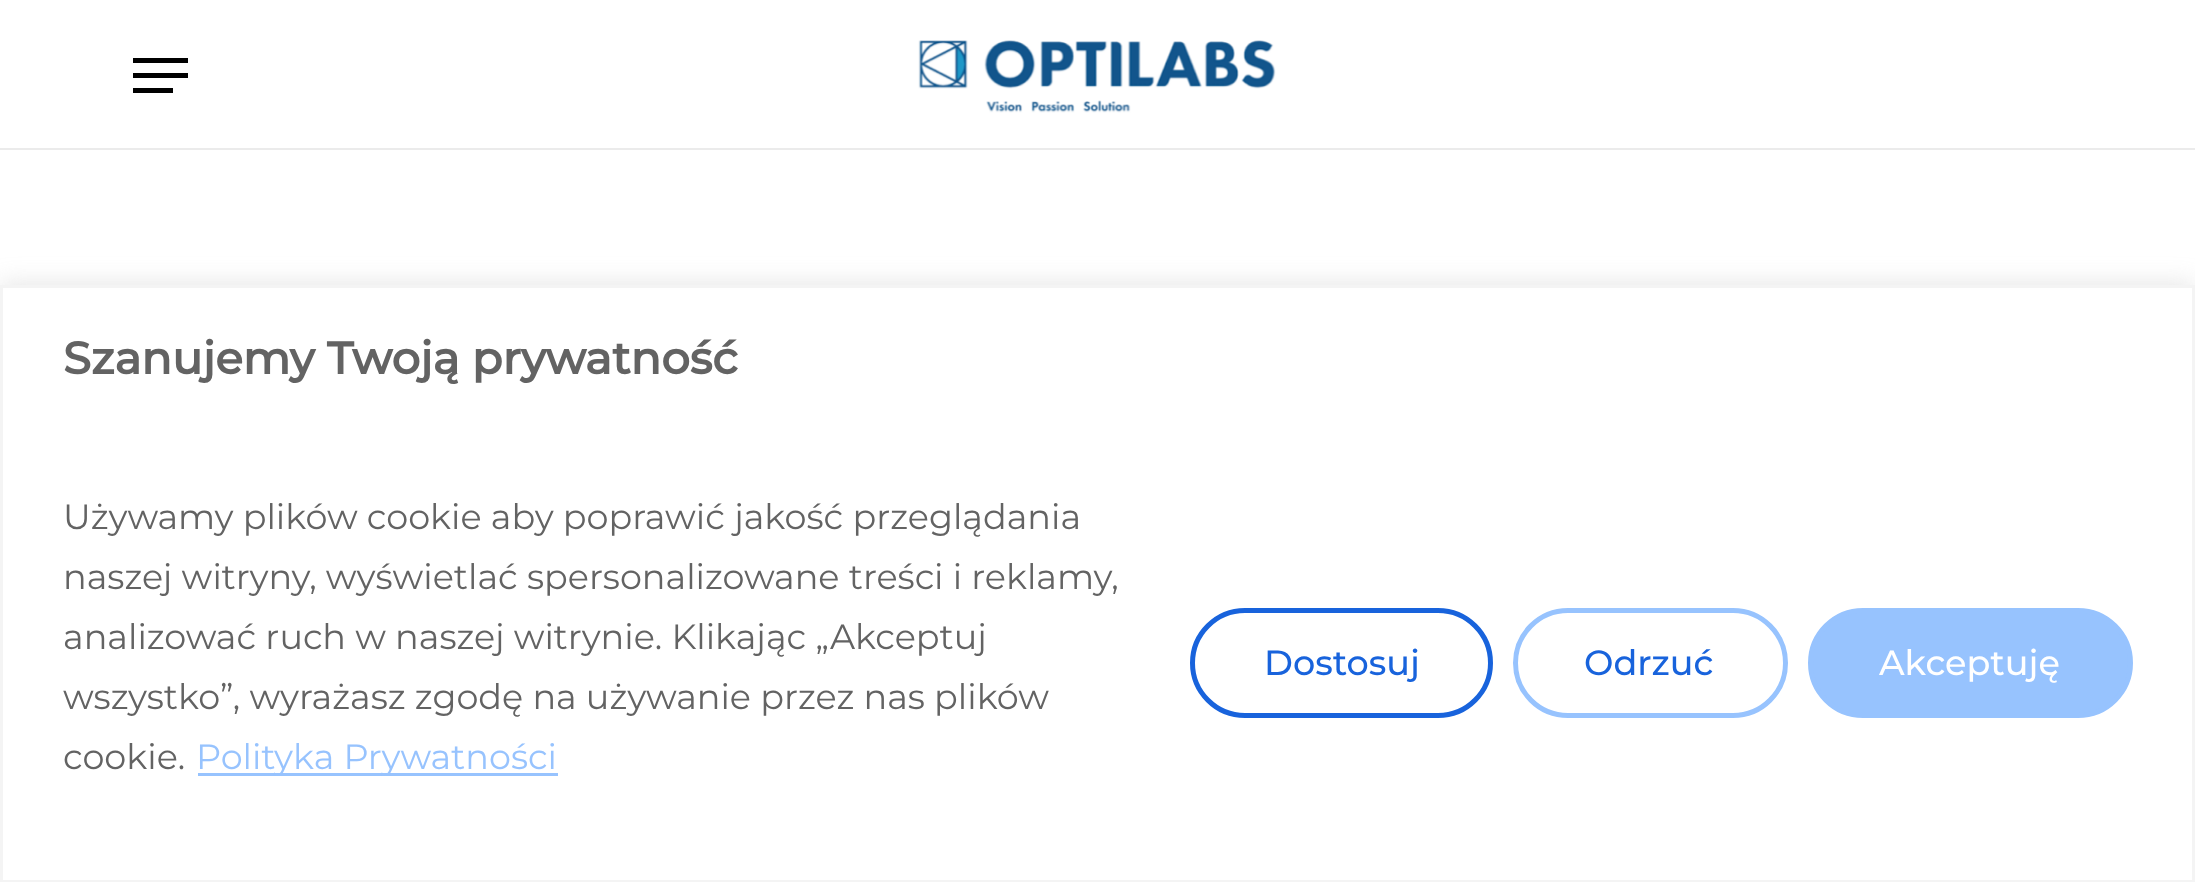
<svg xmlns="http://www.w3.org/2000/svg" width="2195" height="882" viewBox="0 0 2195 882">
  <rect width="100%" height="100%" fill="#fff"/>
  <path d="M0 148h2195v2H0z" fill="#ebebeb"/>
  <path d="M133 58h55v5H133z" fill="#000"/>
  <path d="M133 88h40v5H133z" fill="#000"/>
  <path d="M133 73h55v5H133z" fill="#000"/>
  <image x="918" y="40" width="358" height="73" href="img/1.png"/>
  <path d="M0 283h2195v597H0z" fill="#acabab4d" filter="blur(12.5px)"/>
  <path d="M1.5 286.5h2192v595H1.5z" fill="#fff" stroke="#f4f4f4" stroke-width="3"/>
  <path d="M198 773h360v3H198z" fill="#97c3fe"/>
  <rect x="1192.5" y="610.5" width="298" height="105" rx="52.5" fill="none" stroke="#1863dc" stroke-width="5"/>
  <rect x="1515.5" y="610.5" width="270" height="105" rx="52.5" fill="none" stroke="#97c3fe" stroke-width="5"/>
  <rect x="1810.5" y="610.5" width="320" height="105" rx="52.5" fill="#97c3fe" stroke="#97c3fe" stroke-width="5"/>
  <text x="63" y="374" font-family="Montserrat" font-size="45" font-weight="bold" fill="#636363">Szanujemy Twoją prywatność</text>
  <g font-family="Montserrat" font-size="35" fill="#636363">
    <text x="63" y="529">Używamy plików cookie aby poprawić jakość przeglądania</text>
    <text x="63" y="589">naszej witryny, wyświetlać spersonalizowane treści i reklamy,</text>
    <text x="63" y="649">analizować ruch w naszej witrynie. Klikając „Akceptuj</text>
    <text x="63" y="709">wszystko”, wyrażasz zgodę na używanie przez nas plików</text>
    <text x="63" y="769">cookie.</text>
  </g>
  <text x="196" y="769" font-family="Montserrat" font-size="35" fill="#97c3fe">Polityka Prywatności</text>
  <g font-family="Montserrat" font-size="35" font-weight="500" fill="#1863dc">
    <text x="1264" y="675">Dostosuj</text>
    <text x="1584" y="675">Odrzuć</text>
  </g>
  <text x="1879" y="675" font-family="Montserrat" font-size="35" font-weight="500" fill="#fff">Akceptuję</text>
</svg>
